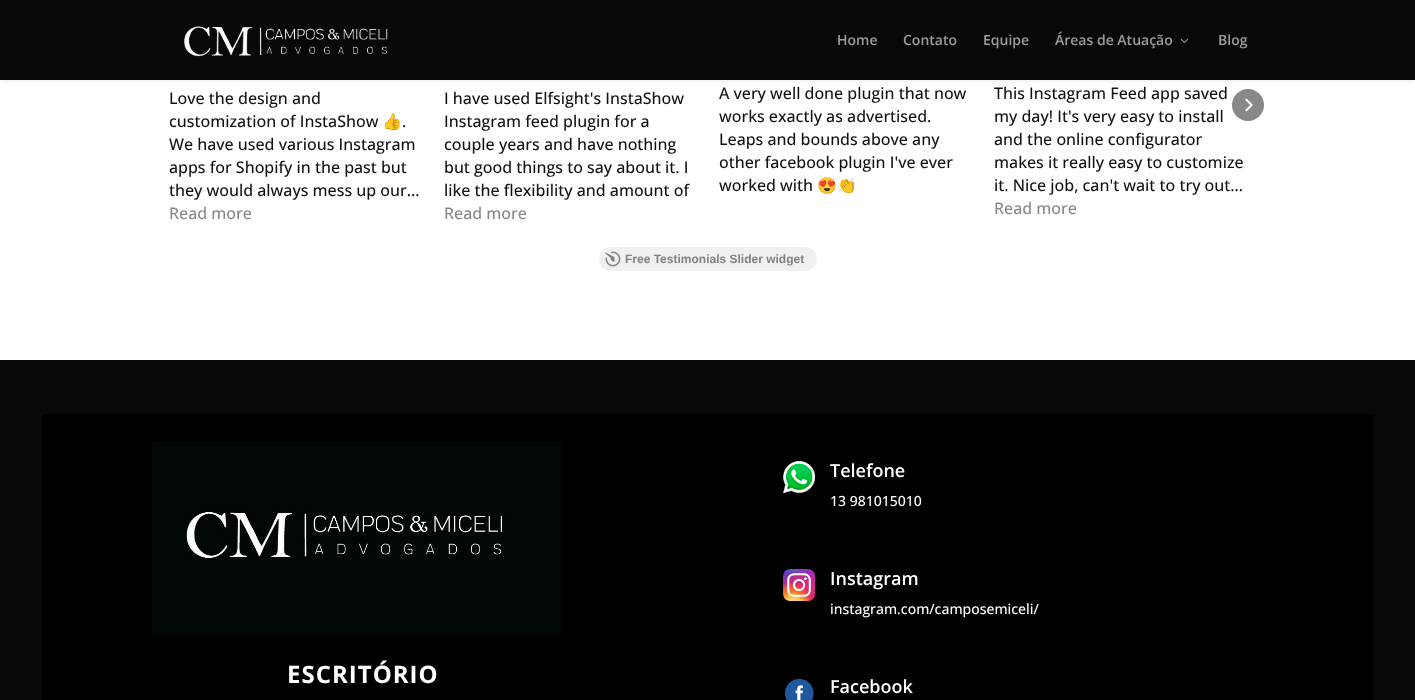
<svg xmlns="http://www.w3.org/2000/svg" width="1415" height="700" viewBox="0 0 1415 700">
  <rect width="100%" height="100%" fill="#fff"/>
  <circle cx="1248" cy="105" r="16" fill="#888"/>
  <path d="M0 0h1415v80H0z" fill="#0000001a" filter="blur(3.5px)"/>
  <path d="M0 0h1415v80H0z" fill="#080809"/>
  <image x="184" y="26" width="204" height="31" href="img/1.png"/>
  <image x="1180" y="38" width="9" height="5" href="img/2.png"/>
  <image x="1245" y="98" width="8" height="14" href="img/3.png"/>
  <rect x="599" y="247" width="218" height="24" rx="12" fill="#f0f0f0"/>
  <image x="605" y="251" width="16" height="16" href="img/4.png"/>
  <path d="M0 360h1415v340H0z" fill="#080809"/>
  <path d="M42 414h1331v286H42z" fill="#000"/>
  <image x="152" y="441" width="409" height="194" href="img/5.png"/>
  <image x="783" y="461" width="32" height="32" href="img/6.png"/>
  <image x="783" y="569" width="32" height="32" href="img/7.png"/>
  <image x="784" y="678" width="30" height="22" href="img/8.png"/>
  <g font-family="Open Sans" font-size="14" font-weight="600" fill="#9c9c9d">
    <text x="837" y="45">Home</text>
    <text x="903" y="45">Contato</text>
    <text x="983" y="45">Equipe</text>
    <text x="1055" y="45">Áreas de Atuação</text>
    <text x="1218" y="45">Blog</text>
  </g>
  <g font-family="Open Sans" font-size="16" font-weight="500" fill="#111">
    <text x="169" y="104">Love the design and</text>
    <text x="169" y="127">customization of InstaShow</text>
  </g>
  <text x="382" y="127" font-family="Noto Color Emoji" font-size="16" fill="#111">👍</text>
  <g font-family="Open Sans" font-size="16" font-weight="500" fill="#111">
    <text x="402" y="127">.</text>
    <text x="169" y="150">We have used various Instagram</text>
    <text x="169" y="173">apps for Shopify in the past but</text>
    <text x="169" y="196">they would always mess up our…</text>
  </g>
  <text x="169" y="219" font-family="Open Sans" font-size="16" font-weight="500" fill="#888">Read more</text>
  <g font-family="Open Sans" font-size="16" font-weight="500" fill="#111">
    <text x="444" y="104">I have used Elfsight's InstaShow</text>
    <text x="444" y="127">Instagram feed plugin for a</text>
    <text x="444" y="150">couple years and have nothing</text>
    <text x="444" y="173">but good things to say about it. I</text>
    <text x="444" y="196">like the flexibility and amount of</text>
  </g>
  <text x="444" y="219" font-family="Open Sans" font-size="16" font-weight="500" fill="#888">Read more</text>
  <g font-family="Open Sans" font-size="16" font-weight="500" fill="#111">
    <text x="719" y="99">A very well done plugin that now</text>
    <text x="719" y="122">works exactly as advertised.</text>
    <text x="719" y="145">Leaps and bounds above any</text>
    <text x="719" y="168">other facebook plugin I've ever</text>
    <text x="719" y="191">worked with</text>
  </g>
  <text x="817" y="191" font-family="Noto Color Emoji" font-size="16" fill="#111">😍👏</text>
  <g font-family="Open Sans" font-size="16" font-weight="500" fill="#111">
    <text x="994" y="99">This Instagram Feed app saved</text>
    <text x="994" y="122">my day! It's very easy to install</text>
    <text x="994" y="145">and the online configurator</text>
    <text x="994" y="168">makes it really easy to customize</text>
    <text x="994" y="191">it. Nice job, can't wait to try out…</text>
  </g>
  <text x="994" y="214" font-family="Open Sans" font-size="16" font-weight="500" fill="#888">Read more</text>
  <text x="625" y="263" font-family="Liberation Sans" font-size="12" font-weight="bold" fill="#818181">Free Testimonials Slider widget</text>
  <text x="287" y="683" font-family="Open Sans" font-size="24" font-weight="bold" letter-spacing="1" fill="#fff">ESCRITÓRIO</text>
  <text x="830" y="477" font-family="Open Sans" font-size="18" font-weight="600" fill="#fff">Telefone</text>
  <text x="830" y="506" font-family="Open Sans" font-size="14" font-weight="500" fill="#fff">13 981015010</text>
  <text x="830" y="585" font-family="Open Sans" font-size="18" font-weight="600" fill="#fff">Instagram</text>
  <text x="830" y="614" font-family="Open Sans" font-size="14" font-weight="500" fill="#fff">instagram.com/camposemiceli/</text>
  <text x="830" y="693" font-family="Open Sans" font-size="18" font-weight="600" fill="#fff">Facebook</text>
</svg>
